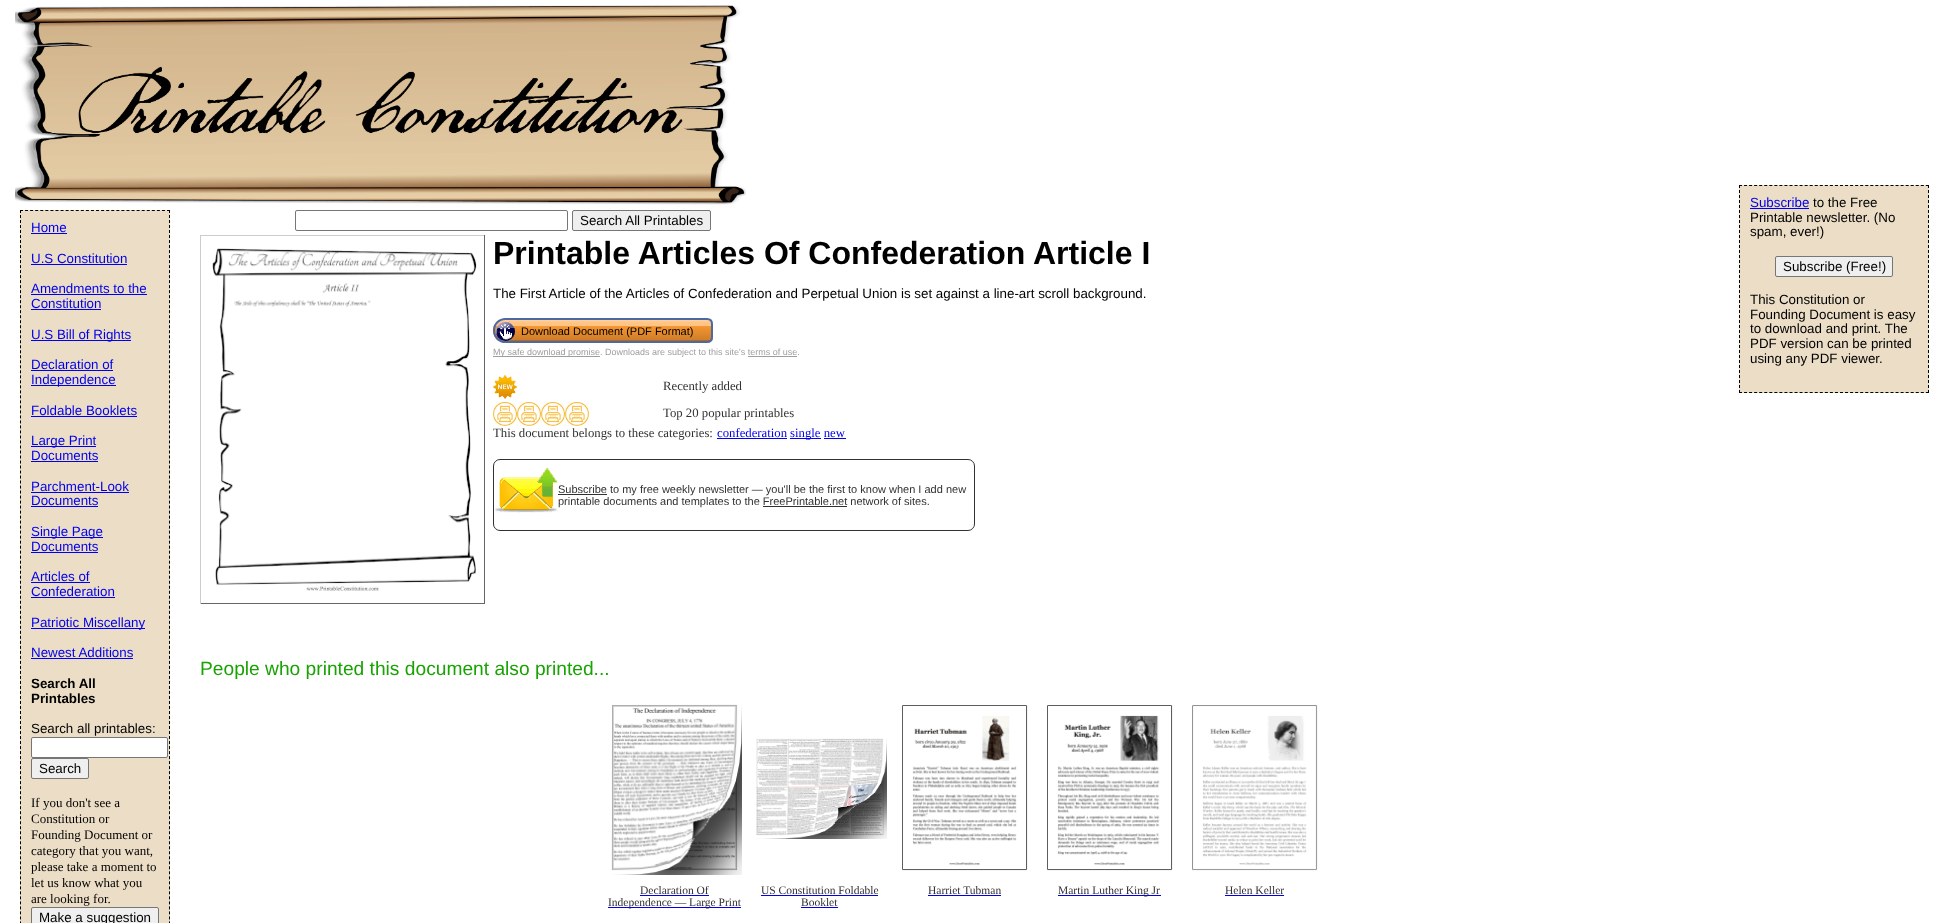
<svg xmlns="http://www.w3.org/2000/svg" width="1949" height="923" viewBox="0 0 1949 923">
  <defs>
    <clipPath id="clip1"><path d="M505.5 318H707C710.5 318 713 320.5 713 324V337C713 340.5 710.5 343 707 343H505.5C498.5 343 493 337.5 493 330.5C493 323.5 498.5 318 505.5 318Z"/></clipPath>
    <linearGradient id="g1" gradientUnits="userSpaceOnUse" x1="603" y1="320" x2="603" y2="341"><stop offset="0" stop-color="#ffd09e"/><stop offset="0.15" stop-color="#ffc384"/><stop offset="0.3" stop-color="#ffc384"/><stop offset="0.31" stop-color="#f49530"/><stop offset="0.94" stop-color="#d07e29"/><stop offset="0.95" stop-color="#bf7425"/><stop offset="1" stop-color="#a46420"/></linearGradient>
  </defs>
  <rect width="100%" height="100%" fill="#fff"/>
  <image x="15" y="5" width="731" height="200" href="img/1.png"/>
  <rect x="295.5" y="210.5" width="272" height="20" rx="1.5" fill="none" stroke="#767676"/>
  <rect x="572.5" y="210.5" width="138" height="20" rx="1.5" fill="#efefef" stroke="#767676"/>
  <path d="M1739 185h190v208H1739z" fill="#ecdec6"/>
  <path d="M1739 185.5H1929" fill="none" stroke="#000" stroke-dasharray="3 2.05"/>
  <path d="M1928.5 185V393" fill="none" stroke="#000" stroke-dasharray="3 2"/>
  <path d="M1739 392.5H1929" fill="none" stroke="#000" stroke-dasharray="3 2.05"/>
  <path d="M1739.5 185V393" fill="none" stroke="#000" stroke-dasharray="3 2"/>
  <path d="M1750 208h59v1H1750z" fill="#00e"/>
  <rect x="1775.5" y="256.5" width="117" height="20" rx="1.5" fill="#efefef" stroke="#767676"/>
  <path d="M20 210h150v713H20z" fill="#ecdec6"/>
  <path d="M20 210.5H170" fill="none" stroke="#000" stroke-dasharray="3 2.07"/>
  <path d="M169.5 210V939" fill="none" stroke="#000" stroke-dasharray="3 2.01"/>
  <path d="M20.5 210V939" fill="none" stroke="#000" stroke-dasharray="3 2.01"/>
  <path d="M31 233h36v1H31z" fill="#00e"/>
  <path d="M31 264h96v1H31z" fill="#00e"/>
  <path d="M31 294h116v1H31z" fill="#00e"/>
  <path d="M31 309h70v1H31z" fill="#00e"/>
  <path d="M31 340h100v1H31z" fill="#00e"/>
  <path d="M31 370h82v1H31z" fill="#00e"/>
  <path d="M31 385h85v1H31z" fill="#00e"/>
  <path d="M31 416h106v1H31z" fill="#00e"/>
  <path d="M31 446h65v1H31z" fill="#00e"/>
  <path d="M31 461h67v1H31z" fill="#00e"/>
  <path d="M31 492h98v1H31z" fill="#00e"/>
  <path d="M31 506h67v1H31z" fill="#00e"/>
  <path d="M31 537h72v1H31z" fill="#00e"/>
  <path d="M31 552h67v1H31z" fill="#00e"/>
  <path d="M31 582h59v1H31z" fill="#00e"/>
  <path d="M31 597h84v1H31z" fill="#00e"/>
  <path d="M31 628h114v1H31z" fill="#00e"/>
  <path d="M31 658h102v1H31z" fill="#00e"/>
  <rect x="31.5" y="737.5" width="136" height="20" rx="1.5" fill="#fff" stroke="#767676"/>
  <rect x="31.5" y="758.5" width="57" height="20" rx="1.5" fill="#efefef" stroke="#767676"/>
  <rect x="31.5" y="907.5" width="127" height="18" rx="1.5" fill="#efefef" stroke="#767676"/>
  <path d="M200 235h285v1H200z" fill="#ccc"/>
  <path d="M484 235h1v369H484z" fill="#666"/>
  <path d="M200 603h285v1H200z" fill="#666"/>
  <path d="M200 235h1v369H200z" fill="#ccc"/>
  <image x="212" y="248" width="265" height="343" href="img/2.png"/>
  <g clip-path="url(#clip1)">
    <path d="M493 320h220v21H493z" fill="url(#g1)"/>
  </g>
  <path d="M505.5 319H707C710 319 712 321 712 324V337C712 340 710 342 707 342H505.5C499 342 494 337 494 330.5C494 324 499 319 505.5 319Z" fill="none" stroke="#4c69a4" stroke-width="2"/>
  <image x="496" y="321" width="19" height="20" href="img/3.png"/>
  <path d="M493 356h107v1H493z" fill="#9e9e9e"/>
  <path d="M748 356h49v1H748z" fill="#9e9e9e"/>
  <image x="493" y="375" width="24" height="24" href="img/4.png"/>
  <image x="493" y="402" width="24" height="24" href="img/5.png"/>
  <image x="517" y="402" width="24" height="24" href="img/5.png"/>
  <image x="541" y="402" width="24" height="24" href="img/5.png"/>
  <image x="565" y="402" width="24" height="24" href="img/5.png"/>
  <path d="M717 438h70v1H717z" fill="#00e"/>
  <path d="M790 438h31v1H790z" fill="#00e"/>
  <path d="M824 438h22v1H824z" fill="#00e"/>
  <rect x="493.5" y="459.5" width="481" height="71" rx="6.5" fill="none" stroke="#313131"/>
  <image x="495" y="467" width="63" height="46" href="img/6.png"/>
  <path d="M558 494h49v1H558z" fill="#313131"/>
  <path d="M763 506h84v1H763z" fill="#313131"/>
  <image x="611" y="704" width="131" height="171" href="img/7.png"/>
  <path d="M640 895h69v1H640z" fill="#00e"/>
  <path d="M608 907h133v1H608z" fill="#00e"/>
  <image x="756" y="738" width="131" height="101" href="img/8.png"/>
  <path d="M761 895h117v1H761z" fill="#00e"/>
  <path d="M801 907h37v1H801z" fill="#00e"/>
  <image x="902" y="705" width="126" height="166" href="img/9.png"/>
  <path d="M928 895h73v1H928z" fill="#00e"/>
  <image x="1047" y="705" width="126" height="166" href="img/10.png"/>
  <path d="M1058 895h103v1H1058z" fill="#00e"/>
  <image x="1192" y="705" width="126" height="166" href="img/11.png"/>
  <path d="M1225 895h59v1H1225z" fill="#00e"/>
  <text x="580" y="225" font-family="Liberation Sans" font-size="13.35" fill="#000">Search All Printables</text>
  <text x="1750" y="207" font-family="Liberation Sans" font-size="13.35" fill="#00e">Subscribe</text>
  <g font-family="Liberation Sans" font-size="13.35" fill="#000">
    <text x="1813" y="207">to the Free</text>
    <text x="1750" y="222">Printable newsletter. (No</text>
    <text x="1750" y="236">spam, ever!)</text>
    <text x="1783" y="271">Subscribe (Free!)</text>
    <text x="1750" y="304">This Constitution or</text>
    <text x="1750" y="319">Founding Document is easy</text>
    <text x="1750" y="333">to download and print. The</text>
    <text x="1750" y="348">PDF version can be printed</text>
    <text x="1750" y="363">using any PDF viewer.</text>
  </g>
  <g font-family="Liberation Sans" font-size="13.35" fill="#00e">
    <text x="31" y="232">Home</text>
    <text x="31" y="263">U.S Constitution</text>
    <text x="31" y="293">Amendments to the</text>
    <text x="31" y="308">Constitution</text>
    <text x="31" y="339">U.S Bill of Rights</text>
    <text x="31" y="369">Declaration of</text>
    <text x="31" y="384">Independence</text>
    <text x="31" y="415">Foldable Booklets</text>
    <text x="31" y="445">Large Print</text>
    <text x="31" y="460">Documents</text>
    <text x="31" y="491">Parchment-Look</text>
    <text x="31" y="505">Documents</text>
    <text x="31" y="536">Single Page</text>
    <text x="31" y="551">Documents</text>
    <text x="31" y="581">Articles of</text>
    <text x="31" y="596">Confederation</text>
    <text x="31" y="627">Patriotic Miscellany</text>
    <text x="31" y="657">Newest Additions</text>
  </g>
  <g font-family="Liberation Sans" font-size="13.35" font-weight="bold" fill="#000">
    <text x="31" y="688">Search All</text>
    <text x="31" y="703">Printables</text>
  </g>
  <g font-family="Liberation Sans" font-size="13.35" fill="#000">
    <text x="31" y="733">Search all printables:</text>
    <text x="39" y="773">Search</text>
  </g>
  <g font-family="Liberation Serif" font-size="13" fill="#000">
    <text x="31" y="807">If you don't see a</text>
    <text x="31" y="823">Constitution or</text>
    <text x="31" y="839">Founding Document or</text>
    <text x="31" y="855">category that you want,</text>
    <text x="31" y="871">please take a moment to</text>
    <text x="31" y="887">let us know what you</text>
    <text x="31" y="903">are looking for.</text>
  </g>
  <text x="39" y="922" font-family="Liberation Sans" font-size="13.35" fill="#000">Make a suggestion</text>
  <text x="493" y="264" font-family="Liberation Sans" font-size="32" font-weight="bold" fill="#000">Printable Articles Of Confederation Article I</text>
  <text x="493" y="298" font-family="Liberation Sans" font-size="13.35" fill="#000">The First Article of the Articles of Confederation and Perpetual Union is set against a line-art scroll background.</text>
  <text x="521" y="335" font-family="Liberation Sans" font-size="11" fill="#000">Download Document (PDF Format)</text>
  <text x="493" y="355" font-family="Liberation Sans" font-size="9" fill="#9e9e9e">My safe download promise. Downloads are subject to this site's terms of use.</text>
  <g font-family="Liberation Serif" font-size="12.75" fill="#313131">
    <text x="663" y="390">Recently added</text>
    <text x="663" y="417">Top 20 popular printables</text>
    <text x="493" y="437">This document belongs to these categories:</text>
  </g>
  <g font-family="Liberation Serif" font-size="12.75" fill="#00e">
    <text x="717" y="437">confederation</text>
    <text x="790" y="437">single new</text>
  </g>
  <g font-family="Liberation Sans" font-size="11" fill="#313131">
    <text x="558" y="493">Subscribe to my free weekly newsletter — you'll be the first to know when I add new</text>
    <text x="558" y="505">printable documents and templates to the FreePrintable.net network of sites.</text>
  </g>
  <text x="200" y="675" font-family="Liberation Sans" font-size="19.2" fill="#18a303">People who printed this document also printed...</text>
  <g font-family="Liberation Serif" font-size="11.5" fill="#313131">
    <text x="640" y="894">Declaration Of</text>
    <text x="608" y="906">Independence — Large Print</text>
    <text x="761" y="894">US Constitution Foldable</text>
    <text x="801" y="906">Booklet</text>
    <text x="928" y="894">Harriet Tubman</text>
    <text x="1058" y="894">Martin Luther King Jr</text>
    <text x="1225" y="894">Helen Keller</text>
  </g>
</svg>
